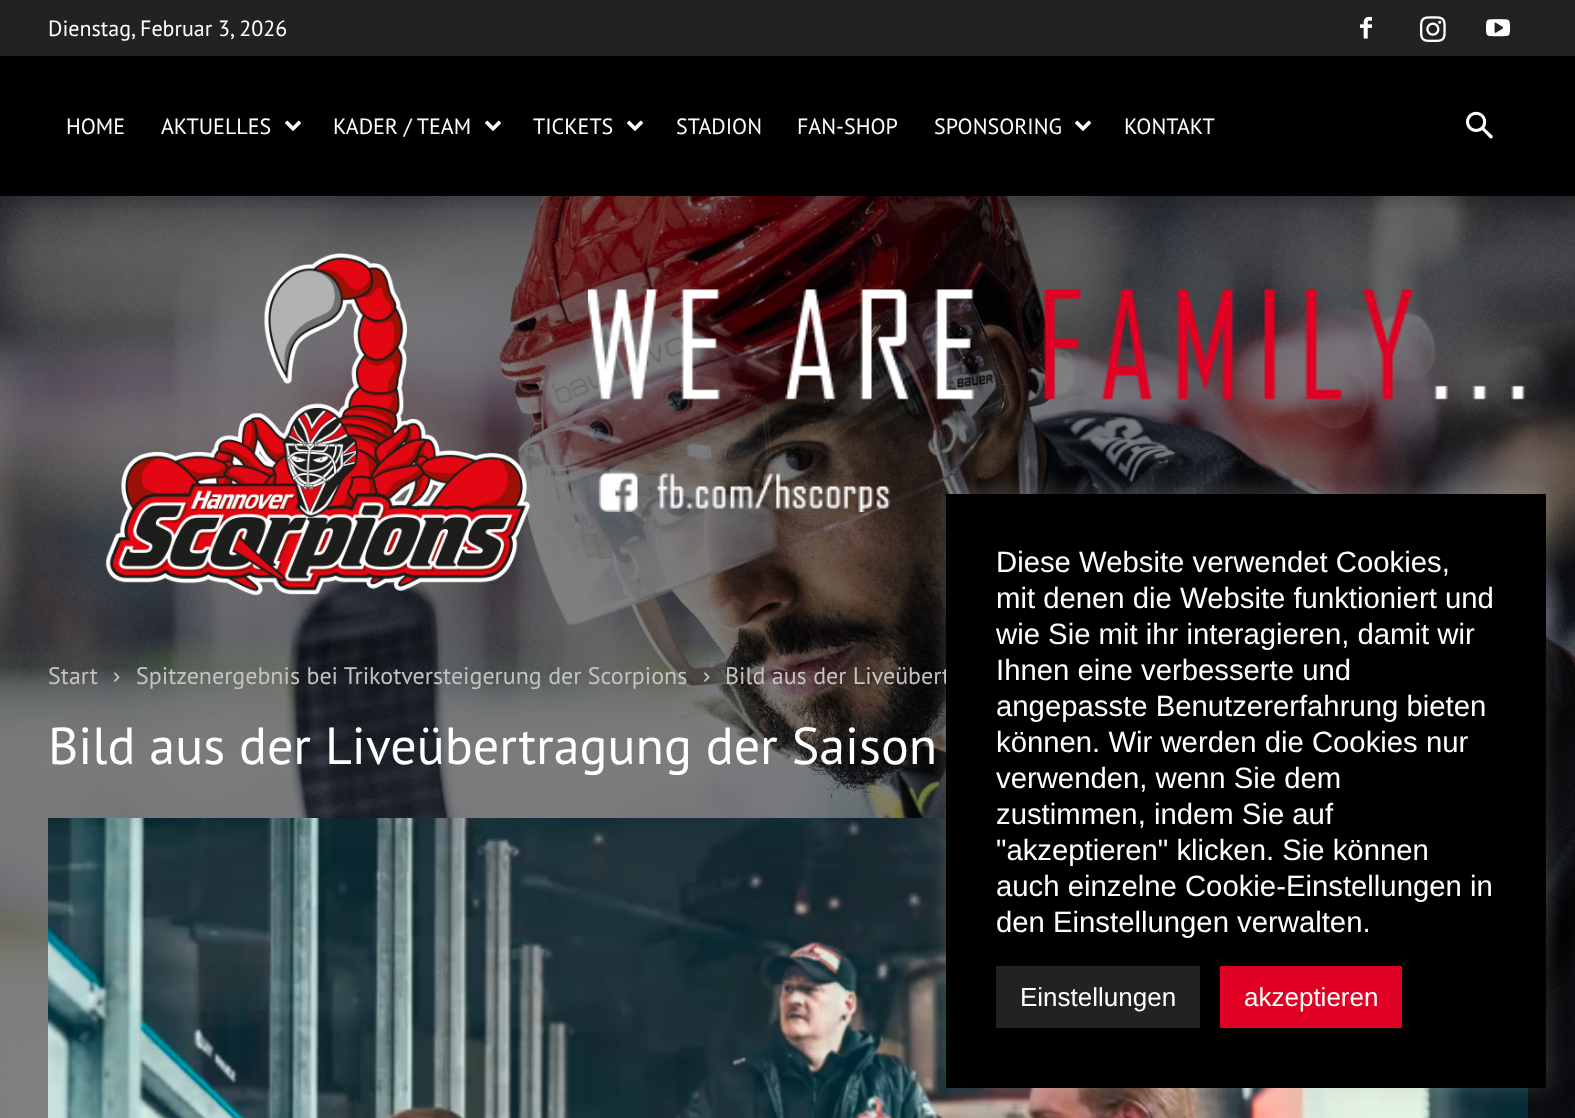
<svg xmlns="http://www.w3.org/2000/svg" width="1575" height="1118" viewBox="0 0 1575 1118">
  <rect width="100%" height="100%" fill="#fff"/>
  <path d="M0 0h1575v56H0z" fill="#222"/>
  <image x="1360" y="16" width="12" height="23" href="img/1.png"/>
  <image x="1420" y="16" width="26" height="26" href="img/2.png"/>
  <image x="1486" y="19" width="24" height="18" href="img/3.png"/>
  <path d="M0 56h1575v140H0z" fill="#000"/>
  <image x="285" y="120" width="16" height="11" href="img/4.png"/>
  <image x="485" y="120" width="16" height="11" href="img/4.png"/>
  <image x="627" y="120" width="16" height="11" href="img/4.png"/>
  <image x="1075" y="120" width="16" height="11" href="img/4.png"/>
  <image x="1466" y="111" width="27" height="28" href="img/5.png"/>
  <image x="0" y="196" width="1575" height="922" href="img/12.png"/>
  <path d="M0 196h1575v428H0z" fill="#00000080"/>
  <image x="6" y="196" width="1469" height="12" href="img/6.png"/>
  <image x="105" y="253" width="426" height="343" href="img/7.png"/>
  <image x="588" y="289" width="937" height="223" href="img/8.png"/>
  <path d="M0 624h1575v494H0z" fill="#00000080"/>
  <image x="114" y="672" width="6" height="10" href="img/9.png"/>
  <image x="704" y="672" width="6" height="10" href="img/10.png"/>
  <image x="48" y="818" width="1480" height="300" href="img/11.png"/>
  <path d="M946 492h600v594H946z" fill="#acabab4d" filter="blur(10px)"/>
  <g font-family="PT Sans" font-size="22" fill="#fff">
    <text x="48" y="36">Dienstag, Februar 3, 2026</text>
    <text x="66" y="134">HOME</text>
    <text x="161" y="134">AKTUELLES</text>
    <text x="333" y="134">KADER / TEAM</text>
    <text x="533" y="134">TICKETS</text>
    <text x="676" y="134">STADION</text>
    <text x="797" y="134">FAN-SHOP</text>
    <text x="934" y="134">SPONSORING</text>
    <text x="1124" y="134">KONTAKT</text>
  </g>
  <g font-family="PT Sans" font-size="24" fill="#c3c3c3">
    <text x="48" y="684">Start</text>
    <text x="136" y="684">Spitzenergebnis bei Trikotversteigerung der Scorpions</text>
    <text x="725" y="684">Bild aus der Liveübert</text>
  </g>
  <text x="48" y="764" font-family="PT Sans" font-size="52" fill="#fff">Bild aus der Liveübertragung der Saison</text>
  <path d="M946 494h600v594H946z" fill="#000"/>
  <g font-family="Liberation Sans" font-size="29.3" fill="#fff">
    <text x="996" y="572">Diese Website verwendet Cookies,</text>
    <text x="996" y="608">mit denen die Website funktioniert und</text>
    <text x="996" y="644">wie Sie mit ihr interagieren, damit wir</text>
    <text x="996" y="680">Ihnen eine verbesserte und</text>
    <text x="996" y="716">angepasste Benutzererfahrung bieten</text>
    <text x="996" y="752">können. Wir werden die Cookies nur</text>
    <text x="996" y="788">verwenden, wenn Sie dem</text>
    <text x="996" y="824">zustimmen, indem Sie auf</text>
    <text x="996" y="860">"akzeptieren" klicken. Sie können</text>
    <text x="996" y="896">auch einzelne Cookie-Einstellungen in</text>
    <text x="996" y="932">den Einstellungen verwalten.</text>
  </g>
  <path d="M996 966h204v62H996z" fill="#222"/>
  <text x="1020" y="1006" font-family="Liberation Sans" font-size="26" fill="#fff">Einstellungen</text>
  <path d="M1220 966h182v62H1220z" fill="#e00024"/>
  <text x="1244" y="1006" font-family="Liberation Sans" font-size="26" fill="#fff">akzeptieren</text>
</svg>
